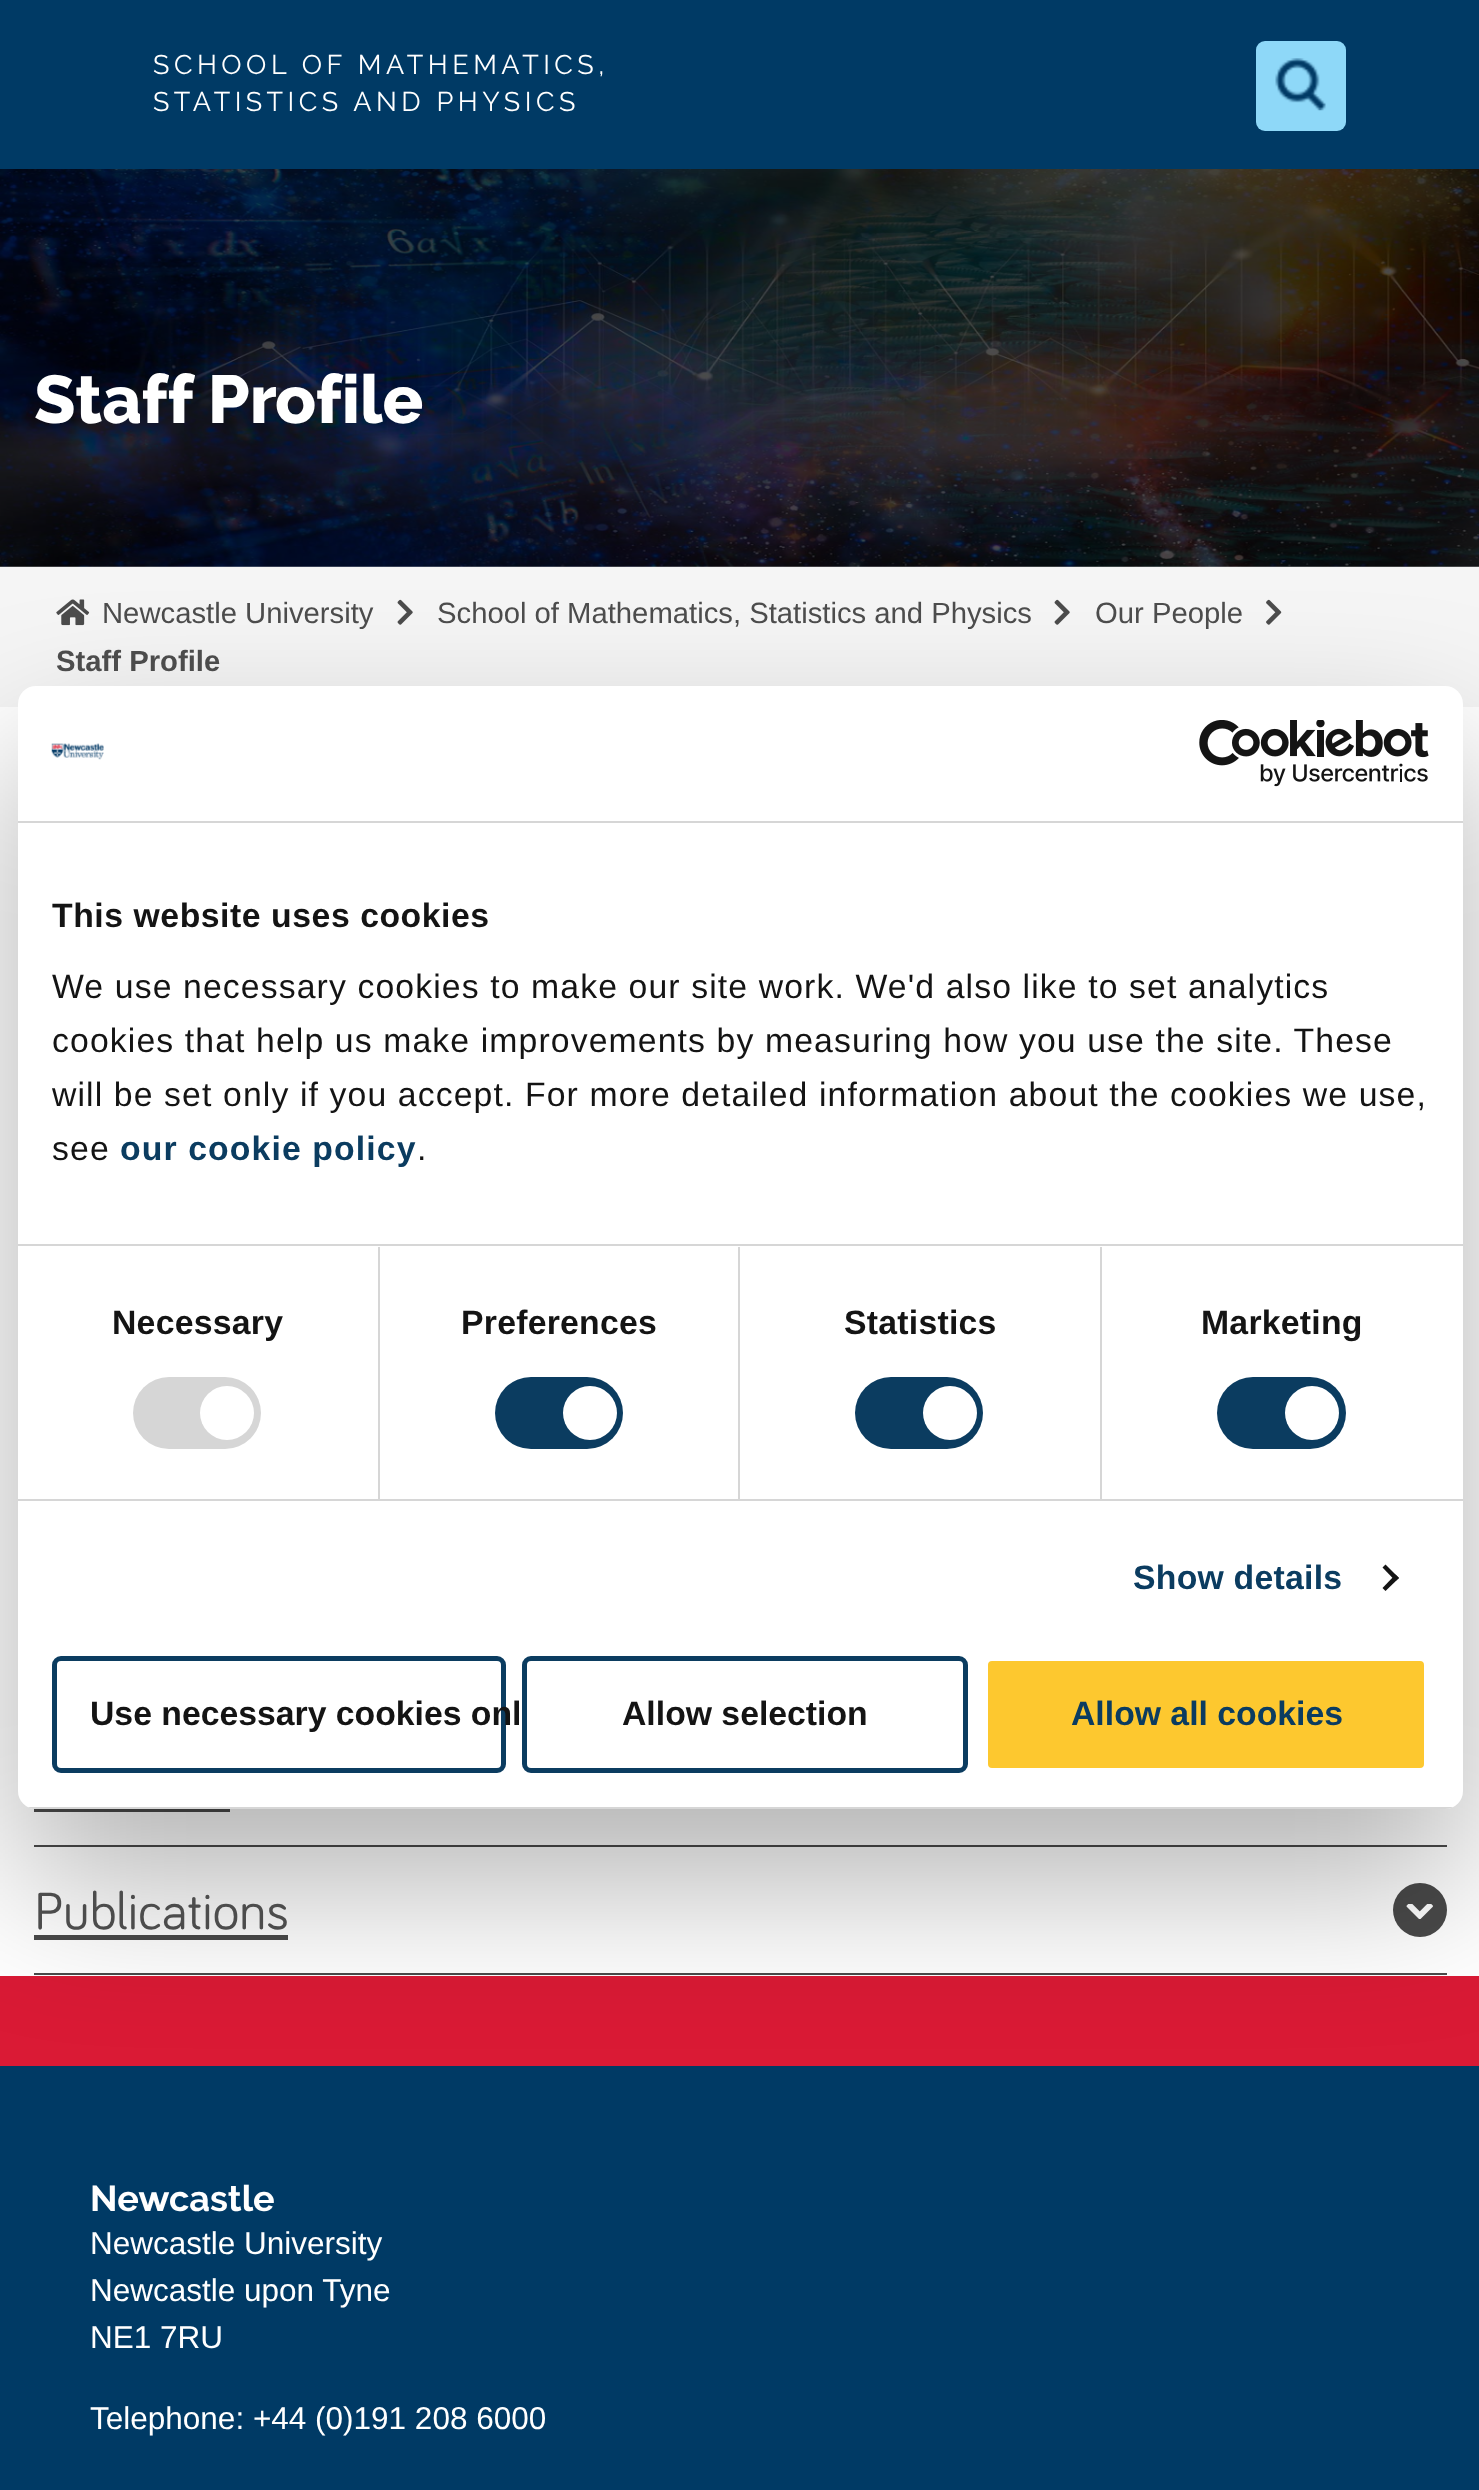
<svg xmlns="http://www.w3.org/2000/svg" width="1479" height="2490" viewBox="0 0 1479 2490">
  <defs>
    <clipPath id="clip1"><rect x="18" y="686" width="1445" height="1123" rx="18"/></clipPath>
  </defs>
  <rect width="100%" height="100%" fill="#fff"/>
  <path d="M0 0h1479v169H0z" fill="#003a65"/>
  <rect x="1256" y="41" width="90" height="90" rx="9" fill="#8ed8f8"/>
  <image x="1275" y="58" width="51" height="53" href="img/1.png"/>
  <image x="0" y="169" width="1479" height="398" href="img/2.png"/>
  <path d="M0 567h1479v140H0z" fill="#f5f5f5"/>
  <image x="56" y="599" width="34" height="27" href="img/3.png"/>
  <image x="397" y="599" width="16" height="26" href="img/4.png"/>
  <image x="1054" y="599" width="16" height="26" href="img/4.png"/>
  <image x="1266" y="599" width="16" height="26" href="img/5.png"/>
  <path d="M34 1845h1413v2H34z" fill="#4a4a4a"/>
  <path d="M34 1808h196v4H34z" fill="#4a4a4a"/>
  <path d="M34 1973h1413v2H34z" fill="#4a4a4a"/>
  <path d="M34 1935h254v5H34z" fill="#4a4a4a"/>
  <circle cx="1420" cy="1910" r="27" fill="#4a4a4a"/>
  <image x="1406" y="1904" width="27" height="15" href="img/6.png"/>
  <path d="M0 2066h1479v424H0z" fill="#003a65"/>
  <path d="M0 1976h1479v90H0z" fill="#da1a35"/>
  <rect x="18" y="758" width="1445" height="1123" rx="18" fill="#0000004d" filter="blur(76.5px)"/>
  <rect x="18" y="686" width="1445" height="1123" rx="18" fill="#fff"/>
  <path d="M18 821h1445v2H18z" fill="#d6d6d6"/>
  <image x="51" y="743" width="53" height="17" href="img/7.png"/>
  <image x="1199" y="720" width="230" height="67" href="img/8.png"/>
  <path d="M18 1244h1445v2H18z" fill="#d6d6d6"/>
  <path d="M18 1499h1445v2H18z" fill="#d6d6d6"/>
  <path d="M378 1247h2v252H378z" fill="#d6d6d6"/>
  <rect x="133" y="1377" width="128" height="72" rx="36" fill="#d6d6d6"/>
  <circle cx="227" cy="1413" r="27" fill="#fff"/>
  <path d="M738 1247h2v252H738z" fill="#d6d6d6"/>
  <rect x="495" y="1377" width="128" height="72" rx="36" fill="#0b3c60"/>
  <circle cx="590" cy="1413" r="27" fill="#fff"/>
  <path d="M1100 1247h2v252H1100z" fill="#d6d6d6"/>
  <rect x="855" y="1377" width="128" height="72" rx="36" fill="#0b3c60"/>
  <circle cx="950" cy="1413" r="27" fill="#fff"/>
  <rect x="1217" y="1377" width="129" height="72" rx="36" fill="#0b3c60"/>
  <circle cx="1312" cy="1413" r="27" fill="#fff"/>
  <path d="M1385.5 1564.5L1399 1578L1395.5 1581L1382.5 1567.5Z" fill="#141414"/>
  <path d="M1395.5 1574.5L1399 1578L1385.5 1591L1382.5 1588Z" fill="#141414"/>
  <g clip-path="url(#clip1)">
    <path d="M28 1807h1425v2H28z" fill="#d6d6d6"/>
  </g>
  <rect x="54.5" y="1658.5" width="449" height="112" rx="6.5" fill="none" stroke="#0b3c60" stroke-width="5"/>
  <rect x="524.5" y="1658.5" width="441" height="112" rx="6.5" fill="none" stroke="#0b3c60" stroke-width="5"/>
  <rect x="985.5" y="1658.5" width="441" height="112" rx="6.5" fill="#fdc82f" stroke="#fff" stroke-width="5"/>
  <g font-family="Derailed" font-size="27" letter-spacing="4.5" fill="#fff">
    <text x="153" y="74">SCHOOL OF MATHEMATICS,</text>
    <text x="153" y="111">STATISTICS AND PHYSICS</text>
  </g>
  <text x="34" y="423" font-family="Derailed" font-size="67.5" font-weight="800" fill="#fff">Staff Profile</text>
  <g font-family="Liberation Sans" font-size="29.25" fill="#4c4c4c">
    <text x="102" y="623">Newcastle University</text>
    <text x="437" y="623">School of Mathematics, Statistics and Physics</text>
    <text x="1095" y="623">Our People</text>
  </g>
  <text x="56" y="671" font-family="Liberation Sans" font-size="29.25" font-weight="bold" fill="#4c4c4c">Staff Profile</text>
  <text x="34" y="1929" font-family="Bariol" font-size="54" fill="#4c4c4c">Publications</text>
  <text x="52" y="927" font-family="Liberation Sans" font-size="33.75" font-weight="bold" letter-spacing="0.55" fill="#141414">This website uses cookies</text>
  <g font-family="Liberation Sans" font-size="33.75" letter-spacing="1.12" fill="#141414">
    <text x="52" y="998">We use necessary cookies to make our site work. We'd also like to set analytics</text>
    <text x="52" y="1052">cookies that help us make improvements by measuring how you use the site. These</text>
    <text x="52" y="1106">will be set only if you accept. For more detailed information about the cookies we use,</text>
    <text x="52" y="1160">see</text>
  </g>
  <text x="120" y="1160" font-family="Liberation Sans" font-size="33.75" font-weight="bold" letter-spacing="1.12" fill="#0b3c60">our cookie policy</text>
  <text x="417" y="1160" font-family="Liberation Sans" font-size="33.75" letter-spacing="1.12" fill="#141414">.</text>
  <g font-family="Liberation Sans" font-size="33.75" font-weight="bold" letter-spacing="0.25" fill="#141414">
    <text x="112" y="1334">Necessary</text>
    <text x="461" y="1334">Preferences</text>
    <text x="844" y="1334">Statistics</text>
    <text x="1201" y="1334">Marketing</text>
  </g>
  <text x="1133" y="1589" font-family="Liberation Sans" font-size="33.75" font-weight="bold" letter-spacing="0.25" fill="#0b3c60">Show details</text>
  <g font-family="Liberation Sans" font-size="33.75" font-weight="bold" fill="#141414">
    <text x="90" y="1725">Use necessary cookies onl</text>
    <text x="622" y="1725">Allow selection</text>
  </g>
  <text x="1071" y="1725" font-family="Liberation Sans" font-size="33.75" font-weight="bold" fill="#0b3c60">Allow all cookies</text>
  <text x="90" y="2211" font-family="Derailed" font-size="36" font-weight="bold" fill="#fff">Newcastle</text>
  <g font-family="Liberation Sans" font-size="31.5" fill="#fff">
    <text x="90" y="2254">Newcastle University</text>
    <text x="90" y="2301">Newcastle upon Tyne</text>
    <text x="90" y="2348">NE1 7RU</text>
    <text x="90" y="2429">Telephone: +44 (0)191 208 6000</text>
  </g>
</svg>
